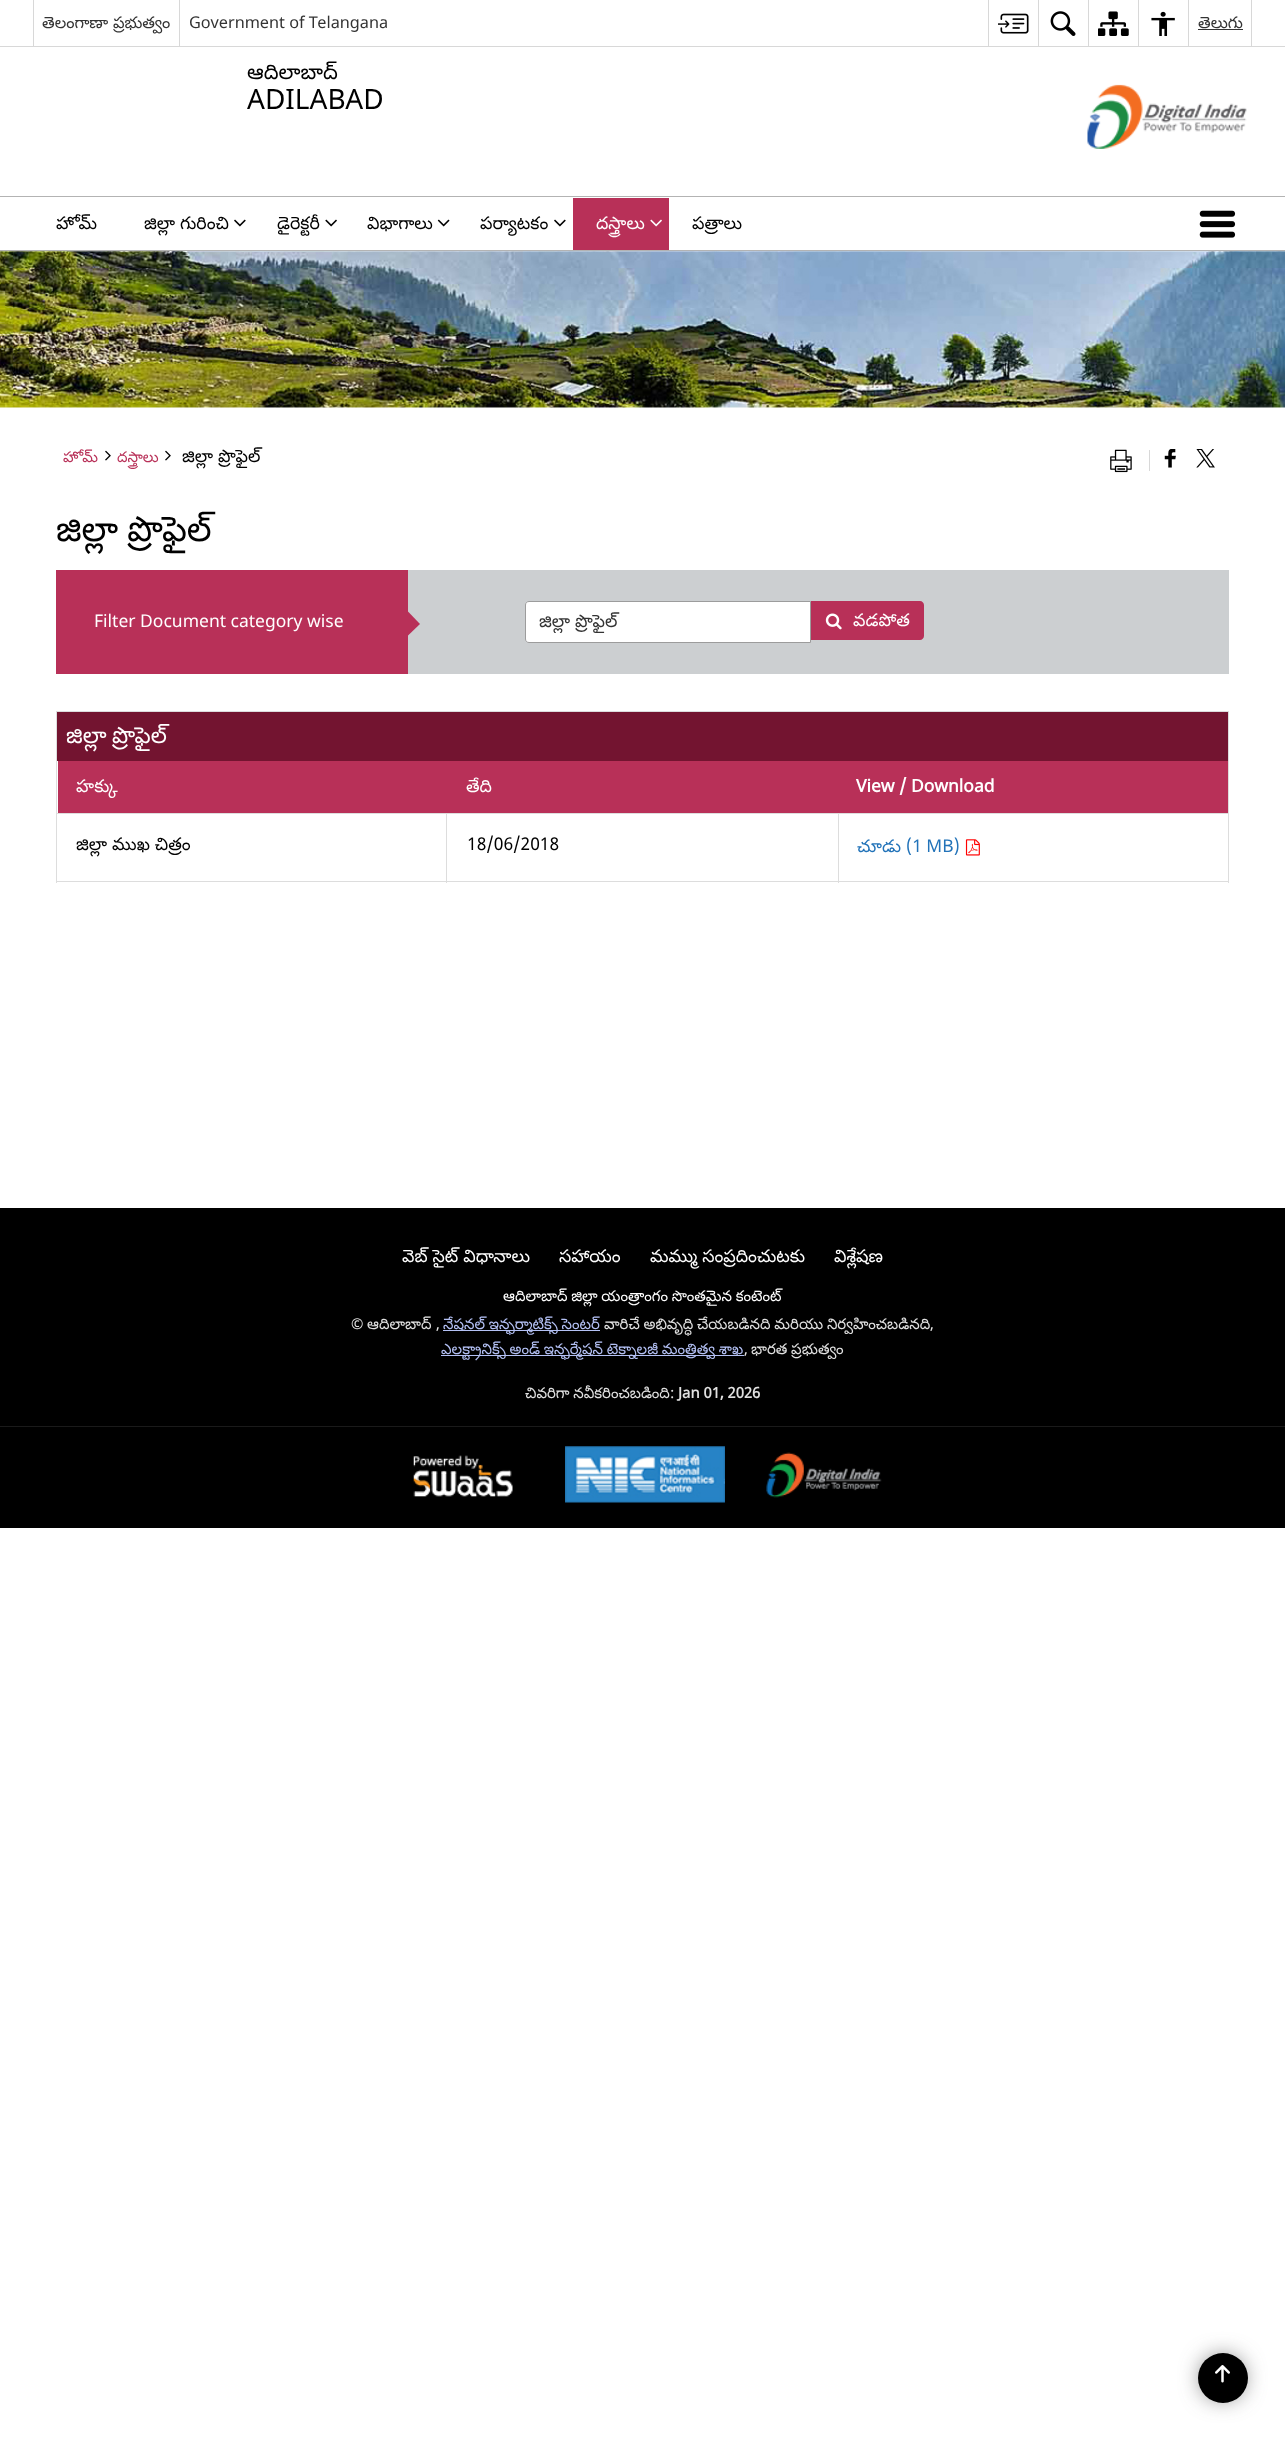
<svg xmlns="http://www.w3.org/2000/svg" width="1285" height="2440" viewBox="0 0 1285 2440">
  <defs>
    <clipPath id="clip1"><path d="M539 611h259v22H539z"/></clipPath>
  </defs>
  <rect width="100%" height="100%" fill="#fff"/>
  <path d="M0 46h1285v1H0z" fill="#d8d8d8"/>
  <path d="M33 0h1v46H33z" fill="#d8d8d8"/>
  <path d="M179 0h1v46H179z" fill="#d8d8d8"/>
  <path d="M988 0h1v46H988z" fill="#d8d8d8"/>
  <image x="998" y="13" width="31" height="21" href="img/1.png"/>
  <path d="M1038 0h1v46H1038z" fill="#d8d8d8"/>
  <image x="1050" y="11" width="26" height="25" href="img/2.png"/>
  <path d="M1088 0h1v46H1088z" fill="#d8d8d8"/>
  <image x="1098" y="11" width="31" height="25" href="img/3.png"/>
  <path d="M1138 0h1v46H1138z" fill="#d8d8d8"/>
  <image x="1151" y="11" width="24" height="25" href="img/4.png"/>
  <path d="M1251 0h1v46H1251z" fill="#d8d8d8"/>
  <path d="M1188 0h1v46H1188z" fill="#d8d8d8"/>
  <path d="M1198 29h45v1H1198z" fill="#333"/>
  <image x="1087" y="84" width="160" height="65" href="img/5.png"/>
  <path d="M0 196h1285v1H0z" fill="#b3b3b3"/>
  <path d="M0 250h1285v1H0z" fill="#b3b3b3"/>
  <image x="234" y="219" width="12" height="8" href="img/6.png"/>
  <image x="325" y="219" width="12" height="8" href="img/7.png"/>
  <image x="437" y="219" width="13" height="8" href="img/8.png"/>
  <image x="554" y="219" width="12" height="8" href="img/6.png"/>
  <path d="M573 198h96v52H573z" fill="#b83058"/>
  <image x="650" y="219" width="12" height="8" href="img/9.png"/>
  <image x="1199" y="210" width="37" height="28" href="img/10.png"/>
  <image x="0" y="251" width="1285" height="157" href="img/11.png"/>
  <image x="105" y="450" width="6" height="11" href="img/12.png"/>
  <image x="165" y="450" width="6" height="11" href="img/12.png"/>
  <image x="1110" y="449" width="22" height="24" href="img/13.png"/>
  <path d="M1149 450h1v21H1149z" fill="#d8d8d8"/>
  <image x="1164" y="449" width="12" height="19" href="img/14.png"/>
  <image x="1196" y="449" width="19" height="19" href="img/15.png"/>
  <path d="M408 570h821v104H408z" fill="#cccfd1"/>
  <path d="M56 570h352v104H56z" fill="#b83058"/>
  <path d="M407.5 636V611L420 624Z" fill="#b83058"/>
  <path d="M529 601.5H810.5V642.5H529C527 642.5 525.5 641 525.5 639V605C525.5 603 527 601.5 529 601.5Z" fill="#fff" stroke="#9c9c9c"/>
  <path d="M811 601H920C922 601 924 603 924 605V636C924 638 922 640 920 640H811Z" fill="#b83058"/>
  <image x="825" y="613" width="17" height="17" href="img/16.png"/>
  <path d="M56 711h1173v1H56z" fill="#ddd"/>
  <path d="M1228 711h1v172H1228z" fill="#ddd"/>
  <path d="M56 881h1173v1H56z" fill="#ddd"/>
  <path d="M56 711h1v172H56z" fill="#ddd"/>
  <path d="M57 712h1171v49H57z" fill="#731430"/>
  <path d="M58 761h1170v52H58z" fill="#b83058"/>
  <path d="M56 813h1173v1H56z" fill="#ddd"/>
  <path d="M446 813h1v70H446z" fill="#ddd"/>
  <path d="M838 813h1v70H838z" fill="#ddd"/>
  <image x="965" y="839" width="15" height="17" href="img/17.png"/>
  <path d="M0 1208h1285v320H0z" fill="#000"/>
  <path d="M443 1330h157v1H443z" fill="#b4c1f5"/>
  <path d="M441 1355h303v1H441z" fill="#b4c1f5"/>
  <path d="M0 1426h1285v1H0z" fill="#1a1a1a"/>
  <image x="413" y="1455" width="100" height="42" href="img/18.png"/>
  <image x="565" y="1446" width="160" height="57" href="img/19.png"/>
  <image x="766" y="1452" width="116" height="46" href="img/20.png"/>
  <rect x="1204" y="2359" width="37" height="37" rx="18.5" fill="#3c3c3c" filter="blur(12px)"/>
  <circle cx="1223" cy="2378" r="25" fill="#000"/>
  <image x="1215" y="2365" width="15" height="18" href="img/21.png"/>
  <text x="42" y="28" font-family="Noto Sans Telugu" font-size="16.25" fill="#333">తెలంగాణా ప్రభుత్వం</text>
  <text x="189" y="28" font-family="Noto Sans" font-size="16.25" fill="#333">Government of Telangana</text>
  <text x="1198" y="28" font-family="Noto Sans Telugu" font-size="16.25" fill="#333">తెలుగు</text>
  <text x="247" y="79" font-family="Noto Sans Telugu" font-size="21" fill="#000">ఆదిలాబాద్</text>
  <text x="247" y="109" font-family="Noto Sans" font-size="28" fill="#000">ADILABAD</text>
  <g font-family="Noto Sans Telugu" font-size="17.5" fill="#000">
    <text x="56" y="229">హోమ్</text>
    <text x="144" y="229">జిల్లా గురించి</text>
    <text x="277" y="229">డైరెక్టరీ</text>
    <text x="367" y="229">విభాగాలు</text>
    <text x="480" y="229">పర్యాటకం</text>
  </g>
  <text x="596" y="229" font-family="Noto Sans Telugu" font-size="17.5" fill="#fff">దస్త్రాలు</text>
  <text x="692" y="229" font-family="Noto Sans Telugu" font-size="17.5" fill="#000">పత్రాలు</text>
  <g font-family="Noto Sans Telugu" font-size="14.9" fill="#b83058">
    <text x="63" y="462">హోమ్</text>
    <text x="117" y="462">దస్త్రాలు</text>
  </g>
  <text x="182" y="462" font-family="Noto Sans Telugu" font-size="17.5" fill="#000">జిల్లా ప్రొఫైల్</text>
  <text x="56" y="541" word-spacing="-1" font-family="Noto Sans Telugu" font-size="35" fill="#000">జిల్లా ప్రొఫైల్</text>
  <text x="94" y="627" font-family="Noto Sans" font-size="17.5" fill="#fff">Filter Document category wise</text>
  <g clip-path="url(#clip1)">
    <text x="539" y="627" font-family="Noto Sans Telugu" font-size="17.5" fill="#333">జిల్లా ప్రొఫైల్</text>
  </g>
  <text x="853" y="626" font-family="Noto Sans Telugu" font-size="17.5" fill="#fff">వడపోత</text>
  <text x="66" y="743" word-spacing="-1" font-family="Noto Sans Telugu" font-size="22.75" fill="#fff">జిల్లా ప్రొఫైల్</text>
  <g font-family="Noto Sans Telugu" font-size="17.5" fill="#fff">
    <text x="76" y="792">హక్కు</text>
    <text x="466" y="792">తేది</text>
  </g>
  <text x="856" y="792" font-family="Noto Sans" font-size="17.5" font-weight="bold" fill="#fff">View / Download</text>
  <text x="76" y="850" font-family="Noto Sans Telugu" font-size="17.5" fill="#000">జిల్లా ముఖ చిత్రం</text>
  <text x="467" y="850" font-family="Noto Sans" font-size="17.5" fill="#000">18/06/2018</text>
  <text x="857" y="852" font-family="Noto Sans Telugu" font-size="17.5" fill="#2273b9">చూడు</text>
  <text x="906" y="852" font-family="Noto Sans" font-size="17.5" fill="#2273b9">(1 MB)</text>
  <g font-family="Noto Sans Telugu" font-size="17.5" fill="#fff">
    <text x="402" y="1262">వెబ్ సైట్ విధానాలు</text>
    <text x="559" y="1262">సహాయం</text>
    <text x="650" y="1262">మమ్ము సంప్రదించుటకు</text>
    <text x="834" y="1262">విశ్లేషణ</text>
  </g>
  <text x="503" y="1301" word-spacing="-0.5" font-family="Noto Sans Telugu" font-size="14.9" fill="#fff">ఆదిలాబాద్ జిల్లా యంత్రాంగం సొంతమైన కంటెంట్</text>
  <text x="351" y="1329" font-family="Noto Sans" font-size="14.9" fill="#e1e1e1">©</text>
  <text x="367" y="1329" font-family="Noto Sans Telugu" font-size="14.9" fill="#e1e1e1">ఆదిలాబాద్</text>
  <text x="436" y="1329" font-family="Noto Sans" font-size="14.9" fill="#e1e1e1">,</text>
  <text x="443" y="1329" word-spacing="-0.5" font-family="Noto Sans Telugu" font-size="14.9" fill="#b4c1f5">నేషనల్ ఇన్ఫర్మాటిక్స్ సెంటర్</text>
  <text x="604" y="1329" word-spacing="-0.5" font-family="Noto Sans Telugu" font-size="14.9" fill="#e1e1e1">వారిచే అభివృద్ధి చేయబడినది మరియు నిర్వహించబడినది</text>
  <text x="930" y="1329" font-family="Noto Sans" font-size="14.9" fill="#e1e1e1">,</text>
  <text x="441" y="1354" word-spacing="-0.5" font-family="Noto Sans Telugu" font-size="14.9" fill="#b4c1f5">ఎలక్ట్రానిక్స్ అండ్ ఇన్ఫర్మేషన్ టెక్నాలజీ మంత్రిత్వ శాఖ</text>
  <text x="744" y="1354" font-family="Noto Sans" font-size="14.9" fill="#e1e1e1">,</text>
  <g font-family="Noto Sans Telugu" font-size="14.9" fill="#e1e1e1">
    <text x="751" y="1354" word-spacing="-0.5">భారత ప్రభుత్వం</text>
    <text x="525" y="1398" word-spacing="-0.5">చివరిగా నవీకరించబడింది</text>
  </g>
  <text x="670" y="1398" font-family="Noto Sans" font-size="14.9" fill="#e1e1e1">:</text>
  <text x="678" y="1398" font-family="Noto Sans" font-size="14.9" font-weight="bold" fill="#e1e1e1">Jan 01, 2026</text>
</svg>
